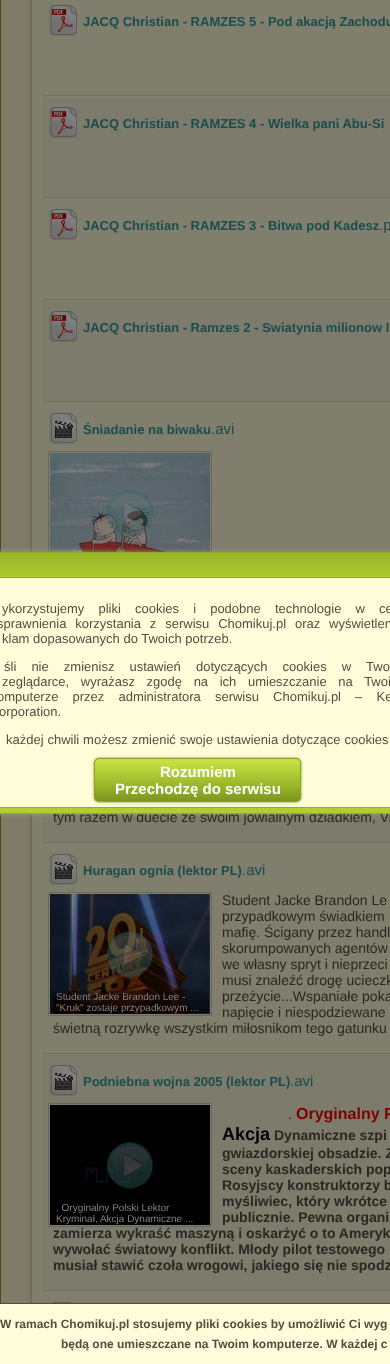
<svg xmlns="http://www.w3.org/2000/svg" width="390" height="1364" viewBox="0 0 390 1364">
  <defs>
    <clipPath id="clip1"><rect x="94" y="758" width="207" height="44" rx="5"/></clipPath>
    <linearGradient id="g1" gradientUnits="userSpaceOnUse" x1="198" y1="759" x2="198" y2="801"><stop offset="0" stop-color="#c6e146"/><stop offset="0.06" stop-color="#c6e146"/><stop offset="0.61" stop-color="#9cb829"/><stop offset="0.83" stop-color="#8aa524"/><stop offset="1" stop-color="#7d9520"/></linearGradient>
  </defs>
  <rect width="100%" height="100%" fill="#807b69"/>
  <path d="M0.5 -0.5h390v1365H0.5z" fill="none" stroke="#444d13"/>
  <rect x="30" y="-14" width="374" height="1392" rx="6" fill="#726e5e" filter="blur(2.5px)"/>
  <path d="M32 0h358v1303H32z" fill="#807e6d"/>
  <path d="M31.5 -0.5h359v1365H31.5z" fill="none" stroke="#6b6758"/>
  <path d="M43 95h347v1H43z" fill="#736f5e"/>
  <image x="48" y="5" width="29" height="31" href="img/1.png"/>
  <path d="M43 97h347v100H43z" fill="#7d7b6b"/>
  <path d="M43 197h347v1H43z" fill="#736f5e"/>
  <image x="48" y="107" width="29" height="31" href="img/2.png"/>
  <path d="M43 299h347v1H43z" fill="#736f5e"/>
  <image x="48" y="209" width="29" height="31" href="img/1.png"/>
  <path d="M43 301h347v100H43z" fill="#7d7b6b"/>
  <path d="M43 401h347v1H43z" fill="#736f5e"/>
  <image x="48" y="311" width="29" height="31" href="img/2.png"/>
  <image x="49" y="413" width="28" height="31" href="img/3.png"/>
  <path d="M48.5 451.5h163v123H48.5z" fill="none" stroke="#686658"/>
  <image x="50" y="453" width="160" height="99" href="img/4.png"/>
  <image x="107" y="490" width="46" height="47" href="img/5.png"/>
  <path d="M43 814h347v28H43z" fill="#7d7b6b"/>
  <path d="M43 842h347v1H43z" fill="#736f5e"/>
  <path d="M43 1053h347v1H43z" fill="#736f5e"/>
  <image x="49" y="854" width="28" height="31" href="img/3.png"/>
  <path d="M48.5 892.5h163v123H48.5z" fill="none" stroke="#686658"/>
  <image x="50" y="894" width="160" height="120" href="img/6.png"/>
  <image x="107" y="931" width="46" height="47" href="img/7.png"/>
  <path d="M43 1055h347v235H43z" fill="#7d7b6b"/>
  <path d="M43 1290h347v1H43z" fill="#736f5e"/>
  <image x="49" y="1065" width="28" height="31" href="img/8.png"/>
  <path d="M48.5 1103.5h163v123H48.5z" fill="none" stroke="#686658"/>
  <image x="50" y="1105" width="160" height="120" href="img/9.png"/>
  <image x="107" y="1142" width="46" height="47" href="img/10.png"/>
  <image x="51" y="1302" width="21" height="1" href="img/11.png"/>
  <rect x="-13" y="552" width="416" height="262" rx="5" fill="#a39d85" filter="blur(2.5px)"/>
  <image x="0" y="553" width="390" height="23" href="img/12.png"/>
  <path d="M0 1304h390v60H0z" fill="#fffcda"/>
  <path d="M0 1303h390v1H0z" fill="#524f42"/>
  <g font-family="Liberation Sans" font-size="13" font-weight="bold" fill="#1a4d4d">
    <text x="83" y="26">JACQ Christian - RAMZES 5 - Pod akacją Zachodu</text>
    <text x="83" y="128">JACQ Christian - RAMZES 4 - Wielka pani Abu-Si</text>
    <text x="83" y="230">JACQ Christian - RAMZES 3 - Bitwa pod Kadesz</text>
  </g>
  <text x="379" y="230" font-family="Liberation Sans" font-size="15" fill="#1a4d4d">.p</text>
  <g font-family="Liberation Sans" font-size="13" font-weight="bold" fill="#1a4d4d">
    <text x="83" y="332">JACQ Christian - Ramzes 2 - Swiatynia milionow l</text>
    <text x="83" y="434">Śniadanie na biwaku</text>
  </g>
  <text x="211" y="434" font-family="Liberation Sans" font-size="15" fill="#1a4d4d">.avi</text>
  <text x="53" y="822" font-family="Liberation Sans" font-size="14" fill="#292821">tym razem w duecie ze swoim jowialnym dziadkiem, Vi</text>
  <text x="83" y="875" font-family="Liberation Sans" font-size="13" font-weight="bold" fill="#1a4d4d">Huragan ognia (lektor PL)</text>
  <text x="242" y="875" font-family="Liberation Sans" font-size="15" fill="#1a4d4d">.avi</text>
  <g font-family="Liberation Sans" font-size="14" fill="#292821">
    <text x="222" y="905">Student Jacke Brandon Le</text>
    <text x="222" y="921">przypadkowym świadkiem</text>
    <text x="222" y="937">mafię. Ścigany przez handl</text>
    <text x="222" y="953">skorumpowanych agentów</text>
    <text x="222" y="969">we własny spryt i nieprzeci</text>
    <text x="222" y="985">musi znaleźć drogę ucieczk</text>
    <text x="222" y="1001">przeżycie...Wspaniałe poka</text>
    <text x="222" y="1017">napięcie i niespodziewane</text>
    <text x="53" y="1033">świetną rozrywkę wszystkim miłosnikom tego gatunku</text>
  </g>
  <g font-family="Liberation Sans" font-size="10" fill="#808080">
    <text x="56" y="1000">Student Jacke Brandon Lee -</text>
    <text x="56" y="1011">"Kruk" zostaje przypadkowym ...</text>
  </g>
  <text x="83" y="1086" font-family="Liberation Sans" font-size="13" font-weight="bold" fill="#1a4d4d">Podniebna wojna 2005 (lektor PL)</text>
  <text x="290" y="1086" font-family="Liberation Sans" font-size="15" fill="#1a4d4d">.avi</text>
  <text x="288" y="1119" font-family="Liberation Sans" font-size="14" fill="#292821">.</text>
  <text x="296" y="1119" font-family="Liberation Sans" font-size="16" font-weight="bold" fill="#800000">Oryginalny P</text>
  <text x="222" y="1140" font-family="Liberation Sans" font-size="18" font-weight="bold" fill="#000">Akcja</text>
  <g font-family="Liberation Sans" font-size="14" font-weight="bold" fill="#292821">
    <text x="274" y="1140">Dynamiczne szpi</text>
    <text x="222" y="1158">gwiazdorskiej obsadzie. Z</text>
    <text x="222" y="1174">sceny kaskaderskich pop</text>
    <text x="222" y="1190">Rosyjscy konstruktorzy b</text>
    <text x="222" y="1206">myśliwiec, który wkrótce</text>
    <text x="222" y="1222">publicznie. Pewna organi</text>
    <text x="53" y="1238">zamierza wykraść maszyną i oskarżyć o to Ameryk</text>
    <text x="53" y="1254">wywołać światowy konflikt. Młody pilot testowego</text>
    <text x="53" y="1270">musiał stawić czoła wrogowi, jakiego się nie spodz</text>
  </g>
  <g font-family="Liberation Sans" font-size="10" fill="#808080">
    <text x="56" y="1211">. Oryginalny Polski Lektor</text>
    <text x="56" y="1222">Kryminał, Akcja Dynamiczne ...</text>
  </g>
  <path d="M0 576h390v237H0z" fill="#b2cd31"/>
  <path d="M-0.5 552.5h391v261H-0.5z" fill="none" stroke="#91ac26"/>
  <path d="M-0.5 577.5h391v230H-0.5z" fill="#fffcda" stroke="#91ac26"/>
  <g font-family="Liberation Sans" font-size="13" fill="#524f42">
    <text x="2" y="613" word-spacing="10.5">ykorzystujemy pliki cookies i podobne technologie w ce</text>
    <text x="-3" y="628" word-spacing="5.25">sprawnienia korzystania z serwisu Chomikuj.pl oraz wyświetlen</text>
    <text x="2" y="643">klam dopasowanych do Twoich potrzeb.</text>
    <text x="4" y="671" word-spacing="11.5">śli nie zmienisz ustawień dotyczących cookies w Two</text>
    <text x="2" y="686" word-spacing="8">zeglądarce, wyrażasz zgodę na ich umieszczanie na Twoi</text>
    <text x="-3" y="701" word-spacing="10.5">omputerze przez administratora serwisu Chomikuj.pl – Ke</text>
    <text x="-1" y="716">orporation.</text>
    <text x="6" y="744" word-spacing="0.25">każdej chwili możesz zmienić swoje ustawienia dotyczące cookies</text>
  </g>
  <rect x="94" y="758" width="207" height="44" rx="5" fill="#899926" filter="blur(1.5px)"/>
  <g clip-path="url(#clip1)">
    <path d="M94 759h207v42H94z" fill="url(#g1)"/>
  </g>
  <rect x="94.5" y="758.5" width="206" height="43" rx="4.5" fill="none" stroke="#89a224"/>
  <g font-family="Liberation Sans" font-size="15" font-weight="bold" fill="#fff">
    <text x="160" y="777">Rozumiem</text>
    <text x="115" y="794">Przechodzę do serwisu</text>
  </g>
  <g font-family="Liberation Sans" font-size="12" font-weight="bold" fill="#524f42">
    <text x="0" y="1328">W ramach Chomikuj.pl stosujemy pliki cookies by umożliwić Ci wyg</text>
    <text x="61" y="1348">będą one umieszczane na Twoim komputerze. W każdej c</text>
  </g>
</svg>
